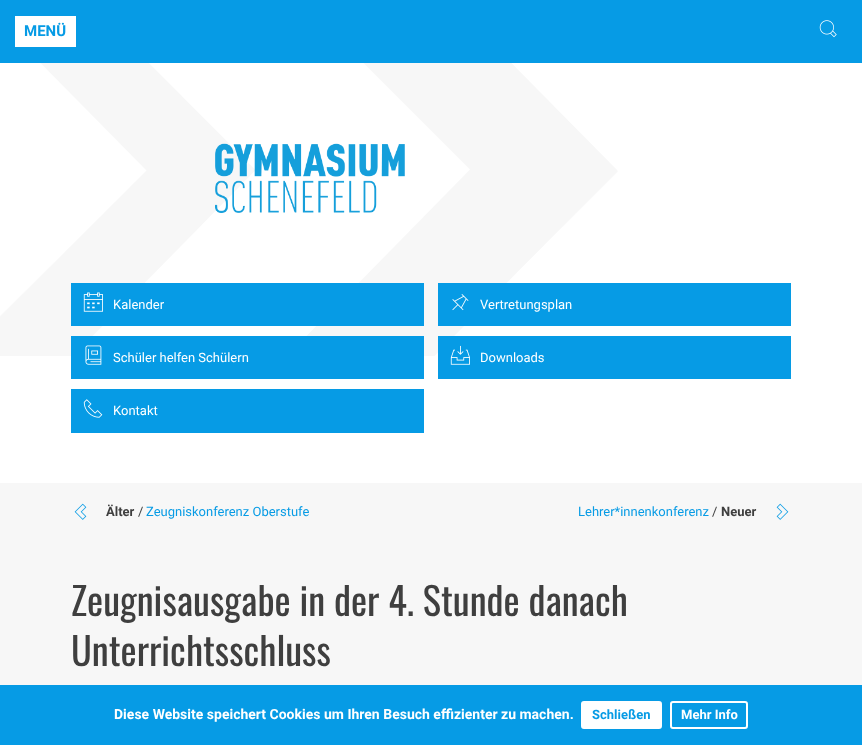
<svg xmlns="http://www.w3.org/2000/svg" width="862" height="745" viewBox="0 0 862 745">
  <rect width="100%" height="100%" fill="#069be5"/>
  <path d="M15 16h61v31H15z" fill="#fff"/>
  <path d="M0 483h862v202H0z" fill="#f7f7f7"/>
  <image x="819" y="20" width="18" height="18" href="img/1.png"/>
  <path d="M0 63h862v420H0z" fill="#fff"/>
  <image x="0" y="63" width="618" height="293" href="img/2.png"/>
  <image x="215" y="143" width="190" height="70" href="img/3.png"/>
  <path d="M71 283h353v43H71z" fill="#069be5"/>
  <image x="83" y="292" width="20" height="20" href="img/4.png"/>
  <path d="M438 283h353v43H438z" fill="#069be5"/>
  <image x="452" y="294" width="17" height="17" href="img/5.png"/>
  <path d="M71 336h353v43H71z" fill="#069be5"/>
  <image x="85" y="345" width="17" height="20" href="img/6.png"/>
  <path d="M438 336h353v43H438z" fill="#069be5"/>
  <image x="450" y="345" width="20" height="20" href="img/7.png"/>
  <path d="M71 389h353v44H71z" fill="#069be5"/>
  <image x="83" y="399" width="20" height="19" href="img/8.png"/>
  <image x="74" y="503" width="13" height="17" href="img/9.png"/>
  <image x="776" y="503" width="13" height="17" href="img/10.png"/>
  <rect x="582" y="702" width="79" height="26" rx="2" fill="#fff" stroke="#fff" stroke-width="2"/>
  <rect x="671" y="702" width="76" height="26" rx="2" fill="none" stroke="#fff" stroke-width="2"/>
  <text x="24" y="36" font-family="Roboto" font-size="15" font-weight="bold" fill="#069be5">MENÜ</text>
  <g font-family="Roboto" font-size="13" fill="#fff">
    <text x="113" y="309">Kalender</text>
    <text x="480" y="309">Vertretungsplan</text>
    <text x="113" y="362">Schüler helfen Schülern</text>
    <text x="480" y="362">Downloads</text>
    <text x="113" y="415">Kontakt</text>
  </g>
  <text x="106" y="516" font-family="Roboto" font-size="13" font-weight="bold" fill="#3f3f3f">Älter</text>
  <text x="138" y="516" font-family="Roboto" font-size="13" fill="#3f3f3f">/</text>
  <g font-family="Roboto" font-size="13" fill="#069be5">
    <text x="146" y="516">Zeugniskonferenz Oberstufe</text>
    <text x="578" y="516">Lehrer*innenkonferenz</text>
  </g>
  <text x="712" y="516" font-family="Roboto" font-size="13" fill="#3f3f3f">/</text>
  <text x="721" y="516" font-family="Roboto" font-size="13" font-weight="bold" fill="#3f3f3f">Neuer</text>
  <g font-family="Oswald" font-size="38.4" fill="#3f3f3f">
    <text x="71" y="616">Zeugnisausgabe in der 4. Stunde danach</text>
    <text x="71" y="666">Unterrichtsschluss</text>
  </g>
  <text x="114" y="719" font-family="Roboto" font-size="14" font-weight="bold" fill="#fff">Diese Website speichert Cookies um Ihren Besuch effizienter zu machen.</text>
  <text x="592" y="719" font-family="Roboto" font-size="13" font-weight="bold" fill="#069be5">Schließen</text>
  <text x="681" y="719" font-family="Roboto" font-size="13" font-weight="bold" fill="#fff">Mehr Info</text>
</svg>
